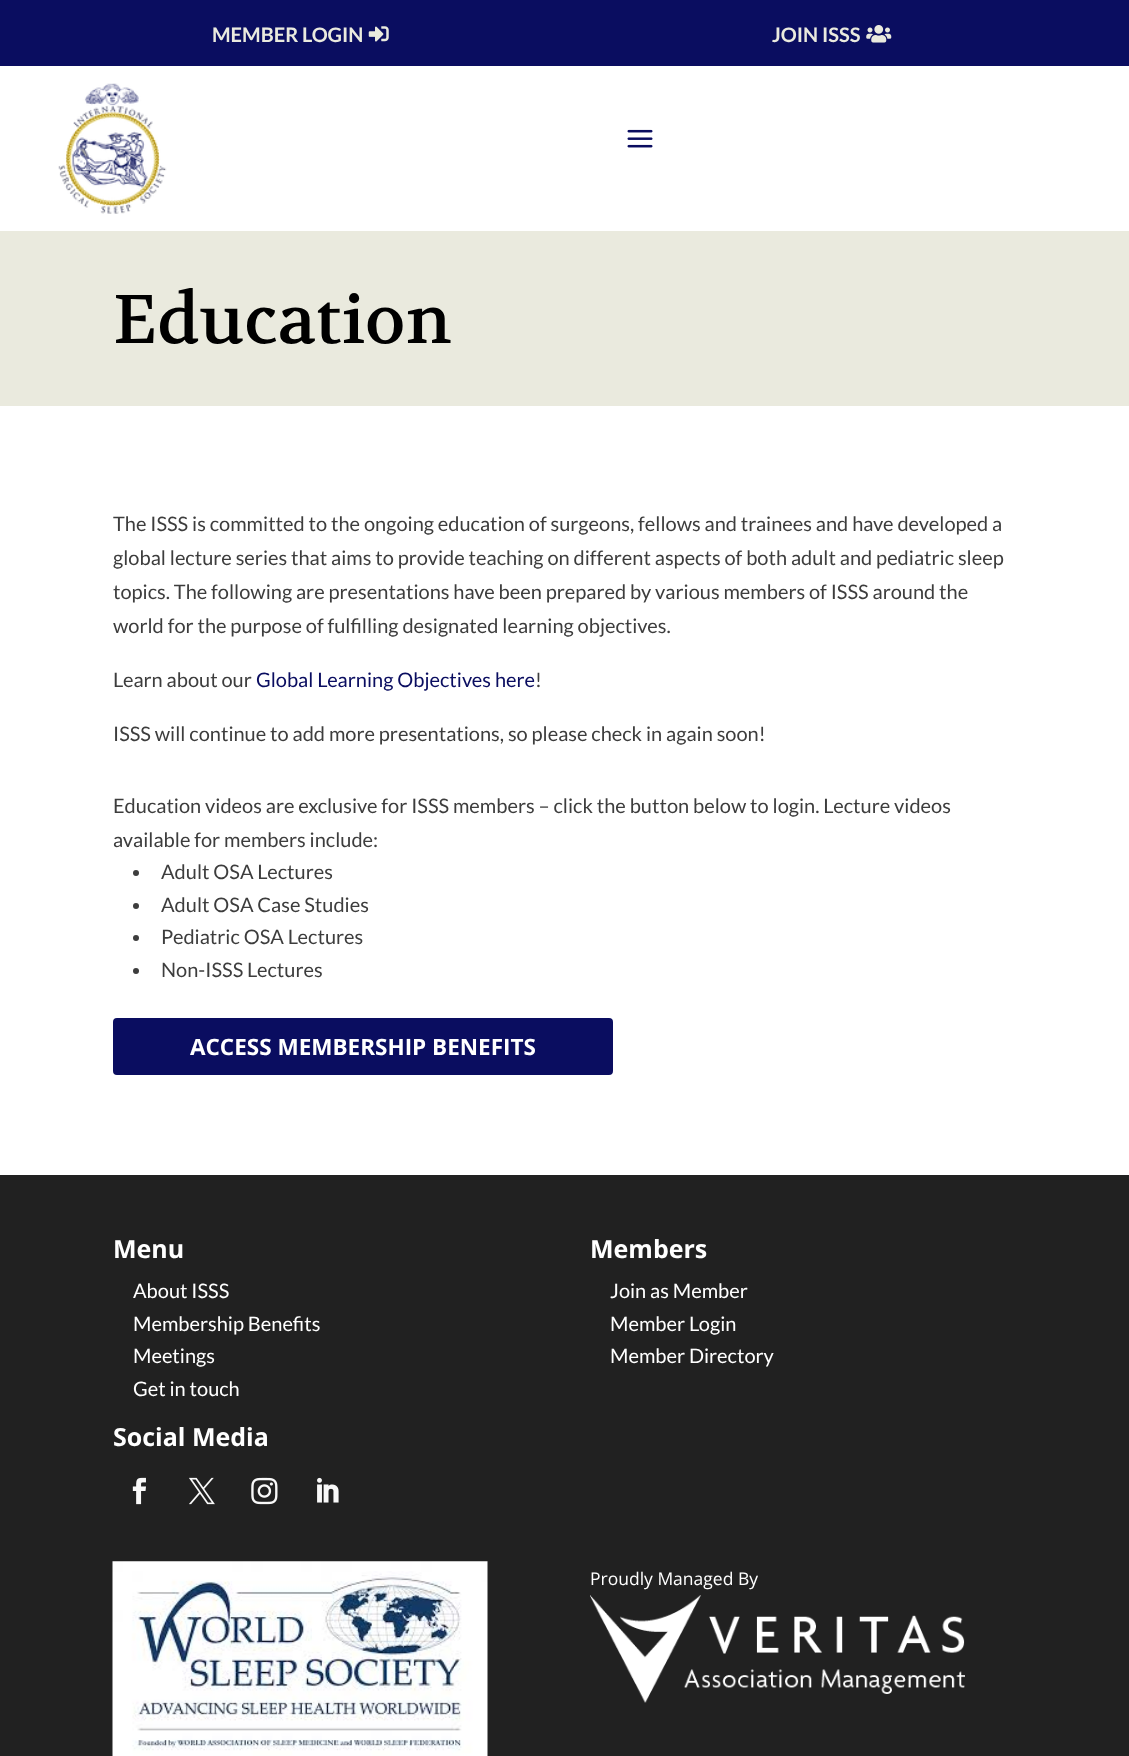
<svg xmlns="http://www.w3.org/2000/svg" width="1129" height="1756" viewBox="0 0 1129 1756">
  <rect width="100%" height="100%" fill="#fff"/>
  <path d="M0 0h1129v66H0z" fill="#0a0d60"/>
  <image x="368" y="26" width="21" height="16" href="img/1.png"/>
  <image x="866" y="25" width="26" height="18" href="img/2.png"/>
  <image x="58" y="83" width="109" height="131" href="img/3.png"/>
  <image x="627" y="129" width="26" height="19" href="img/4.png"/>
  <path d="M0 231h1129v175H0z" fill="#eaeade"/>
  <circle cx="136" cy="873" r="3" fill="#3d3d3d"/>
  <circle cx="136" cy="906" r="3" fill="#3d3d3d"/>
  <circle cx="136" cy="938" r="3" fill="#3d3d3d"/>
  <circle cx="136" cy="971" r="3" fill="#3d3d3d"/>
  <rect x="114.5" y="1019.5" width="497" height="54" rx="2.5" fill="#0a0d60" stroke="#0a0d60" stroke-width="3"/>
  <path d="M0 1175h1129v581H0z" fill="#212121"/>
  <image x="132" y="1477" width="14" height="28" href="img/5.png"/>
  <image x="189" y="1477" width="26" height="28" href="img/6.png"/>
  <image x="251" y="1477" width="27" height="28" href="img/7.png"/>
  <image x="317" y="1477" width="22" height="26" href="img/8.png"/>
  <image x="112" y="1561" width="376" height="195" href="img/9.png"/>
  <image x="590" y="1595" width="375" height="108" href="img/10.png"/>
  <g font-family="Lato" font-size="20" font-weight="bold" fill="#eaeade">
    <text x="212" y="42">MEMBER LOGIN</text>
    <text x="772" y="42">JOIN ISSS</text>
  </g>
  <text x="113" y="343" font-family="Volkhov" font-size="68.75" fill="#000">Education</text>
  <g font-family="Lato" font-size="20" fill="#3d3d3d">
    <text x="113" y="531">The ISSS is committed to the ongoing education of surgeons, fellows and trainees and have developed a</text>
    <text x="113" y="565">global lecture series that aims to provide teaching on different aspects of both adult and pediatric sleep</text>
    <text x="113" y="599">topics. The following are presentations have been prepared by various members of ISSS around the</text>
    <text x="113" y="633">world for the purpose of fulfilling designated learning objectives.</text>
    <text x="113" y="687">Learn about our</text>
  </g>
  <text x="256" y="687" font-family="Lato" font-size="20" fill="#0a0d60">Global Learning Objectives here</text>
  <g font-family="Lato" font-size="20" fill="#3d3d3d">
    <text x="535" y="687">!</text>
    <text x="113" y="741">ISSS will continue to add more presentations, so please check in again soon!</text>
    <text x="113" y="813">Education videos are exclusive for ISSS members – click the button below to login. Lecture videos</text>
    <text x="113" y="847">available for members include:</text>
    <text x="161" y="879">Adult OSA Lectures</text>
    <text x="161" y="912">Adult OSA Case Studies</text>
    <text x="161" y="944">Pediatric OSA Lectures</text>
    <text x="161" y="977">Non-ISSS Lectures</text>
  </g>
  <text x="190" y="1055" font-family="Open Sans" font-size="22.5" font-weight="bold" fill="#fff">ACCESS MEMBERSHIP BENEFITS</text>
  <text x="113" y="1258" font-family="Open Sans" font-size="25" font-weight="bold" fill="#fff">Menu</text>
  <g font-family="Lato" font-size="20" fill="#fff">
    <text x="133" y="1298">About ISSS</text>
    <text x="133" y="1331">Membership Benefits</text>
    <text x="133" y="1363">Meetings</text>
    <text x="133" y="1396">Get in touch</text>
  </g>
  <g font-family="Open Sans" font-size="25" font-weight="bold" fill="#fff">
    <text x="113" y="1446">Social Media</text>
    <text x="590" y="1258">Members</text>
  </g>
  <g font-family="Lato" font-size="20" fill="#fff">
    <text x="610" y="1298">Join as Member</text>
    <text x="610" y="1331">Member Login</text>
    <text x="610" y="1363">Member Directory</text>
  </g>
  <text x="590" y="1585" font-family="Open Sans" font-size="17.5" fill="#fff">Proudly Managed By</text>
</svg>
